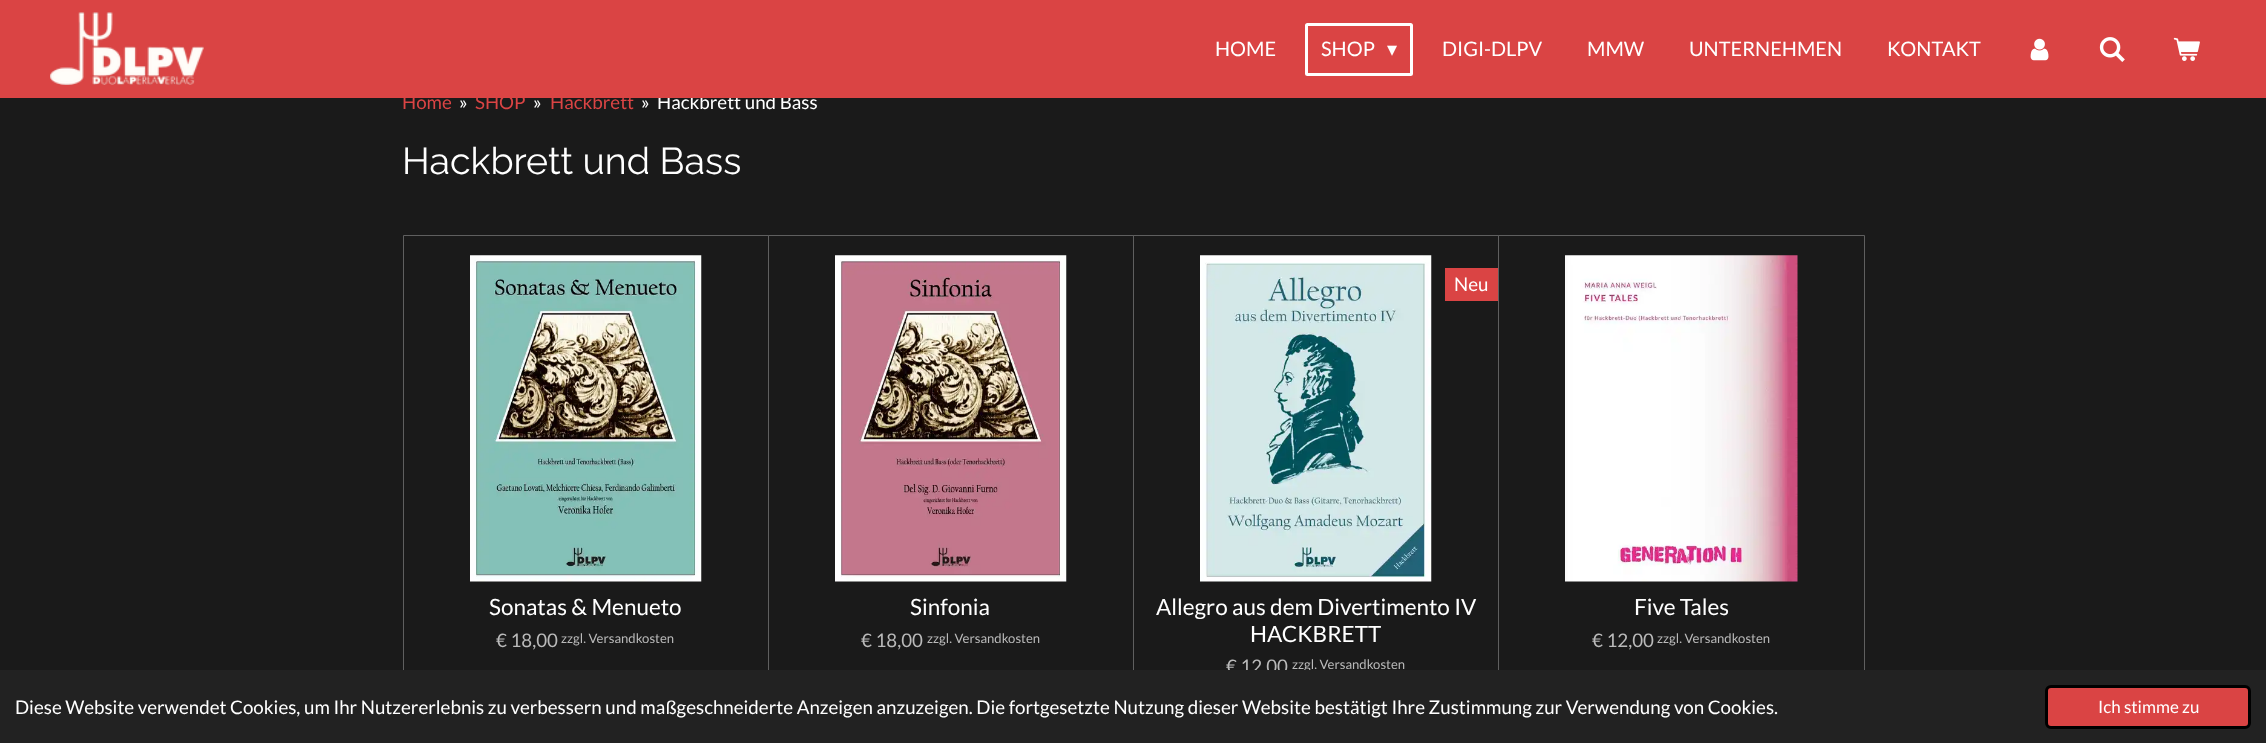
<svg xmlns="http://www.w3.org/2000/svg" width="2266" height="743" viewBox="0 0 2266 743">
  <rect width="100%" height="100%" fill="#1a1a1a"/>
  <path d="M403.5 235.5h365v463H403.5z" fill="none" stroke="#5f5f5f"/>
  <image x="470" y="255" width="232" height="327" href="img/5.png"/>
  <path d="M768.5 235.5h365v463H768.5z" fill="none" stroke="#5f5f5f"/>
  <image x="835" y="255" width="232" height="327" href="img/6.png"/>
  <path d="M1133.5 235.5h365v463H1133.5z" fill="none" stroke="#5f5f5f"/>
  <image x="1200" y="255" width="232" height="327" href="img/7.png"/>
  <path d="M1445 268h53v33H1445z" fill="#da4444"/>
  <path d="M1498.5 235.5h366v463H1498.5z" fill="none" stroke="#5f5f5f"/>
  <image x="1565" y="255" width="233" height="327" href="img/8.png"/>
  <text x="402" y="109" font-family="Lato" font-size="18.75" fill="#da4444">Home</text>
  <text x="459" y="109" font-family="Lato" font-size="18.75" fill="#fff">»</text>
  <text x="475" y="109" font-family="Lato" font-size="18.75" fill="#da4444">SHOP</text>
  <text x="533" y="109" font-family="Lato" font-size="18.75" fill="#fff">»</text>
  <text x="550" y="109" font-family="Lato" font-size="18.75" fill="#da4444">Hackbrett</text>
  <g font-family="Lato" font-size="18.75" fill="#fff">
    <text x="641" y="109">»</text>
    <text x="657" y="109">Hackbrett und Bass</text>
  </g>
  <path d="M0 0h2266v98H0z" fill="#da4444"/>
  <image x="2173" y="37" width="27" height="24" href="img/4.png"/>
  <image x="2099" y="37" width="26" height="25" href="img/3.png"/>
  <image x="2030" y="38" width="19" height="23" href="img/2.png"/>
  <g font-family="Lato" font-size="20" fill="#fff">
    <text x="1887" y="56">KONTAKT</text>
    <text x="1689" y="56">UNTERNEHMEN</text>
    <text x="1587" y="56">MMW</text>
    <text x="1442" y="56">DIGI-DLPV</text>
  </g>
  <rect x="1306.5" y="24.5" width="105" height="50" rx="1" fill="none" stroke="#fff" stroke-width="3"/>
  <text x="1387" y="56" font-family="DejaVu Sans" font-size="20" fill="#fff">▾</text>
  <g font-family="Lato" font-size="20" fill="#fff">
    <text x="1321" y="56">SHOP</text>
    <text x="1215" y="56">HOME</text>
  </g>
  <image x="50" y="12" width="154" height="73" href="img/1.png"/>
  <text x="402" y="174" font-family="Raleway" font-size="37.5" fill="#fff">Hackbrett und Bass</text>
  <text x="489" y="615" font-family="Lato" font-size="22.5" fill="#fff">Sonatas &amp; Menueto</text>
  <text x="496" y="647" font-family="Lato" font-size="18.75" fill="#bababa">€ 18,00</text>
  <text x="561" y="643" font-family="Lato" font-size="13.1" fill="#bababa">zzgl. Versandkosten</text>
  <text x="910" y="615" font-family="Lato" font-size="22.5" fill="#fff">Sinfonia</text>
  <text x="861" y="647" font-family="Lato" font-size="18.75" fill="#bababa">€ 18,00</text>
  <text x="927" y="643" font-family="Lato" font-size="13.1" fill="#bababa">zzgl. Versandkosten</text>
  <text x="1454" y="291" font-family="Lato" font-size="18.75" fill="#fff">Neu</text>
  <g font-family="Lato" font-size="22.5" fill="#fff">
    <text x="1156" y="615">Allegro aus dem Divertimento IV</text>
    <text x="1250" y="642">HACKBRETT</text>
  </g>
  <text x="1226" y="673" font-family="Lato" font-size="18.75" fill="#bababa">€ 12,00</text>
  <text x="1292" y="669" font-family="Lato" font-size="13.1" fill="#bababa">zzgl. Versandkosten</text>
  <text x="1634" y="615" font-family="Lato" font-size="22.5" fill="#fff">Five Tales</text>
  <text x="1592" y="647" font-family="Lato" font-size="18.75" fill="#bababa">€ 12,00</text>
  <text x="1657" y="643" font-family="Lato" font-size="13.1" fill="#bababa">zzgl. Versandkosten</text>
  <path d="M0 670h2266v73H0z" fill="#222"/>
  <text x="15" y="714" font-family="Lato" font-size="18.75" fill="#fff">Diese Website verwendet Cookies, um Ihr Nutzererlebnis zu verbessern und maßgeschneiderte Anzeigen anzuzeigen. Die fortgesetzte Nutzung dieser Website bestätigt Ihre Zustimmung zur Verwendung von Cookies.</text>
  <rect x="2046.5" y="686.5" width="203" height="41" rx="4.5" fill="#da4444" stroke="#000" stroke-width="3"/>
  <text x="2098" y="713" font-family="Lato" font-size="17" fill="#fff">Ich stimme zu</text>
</svg>
